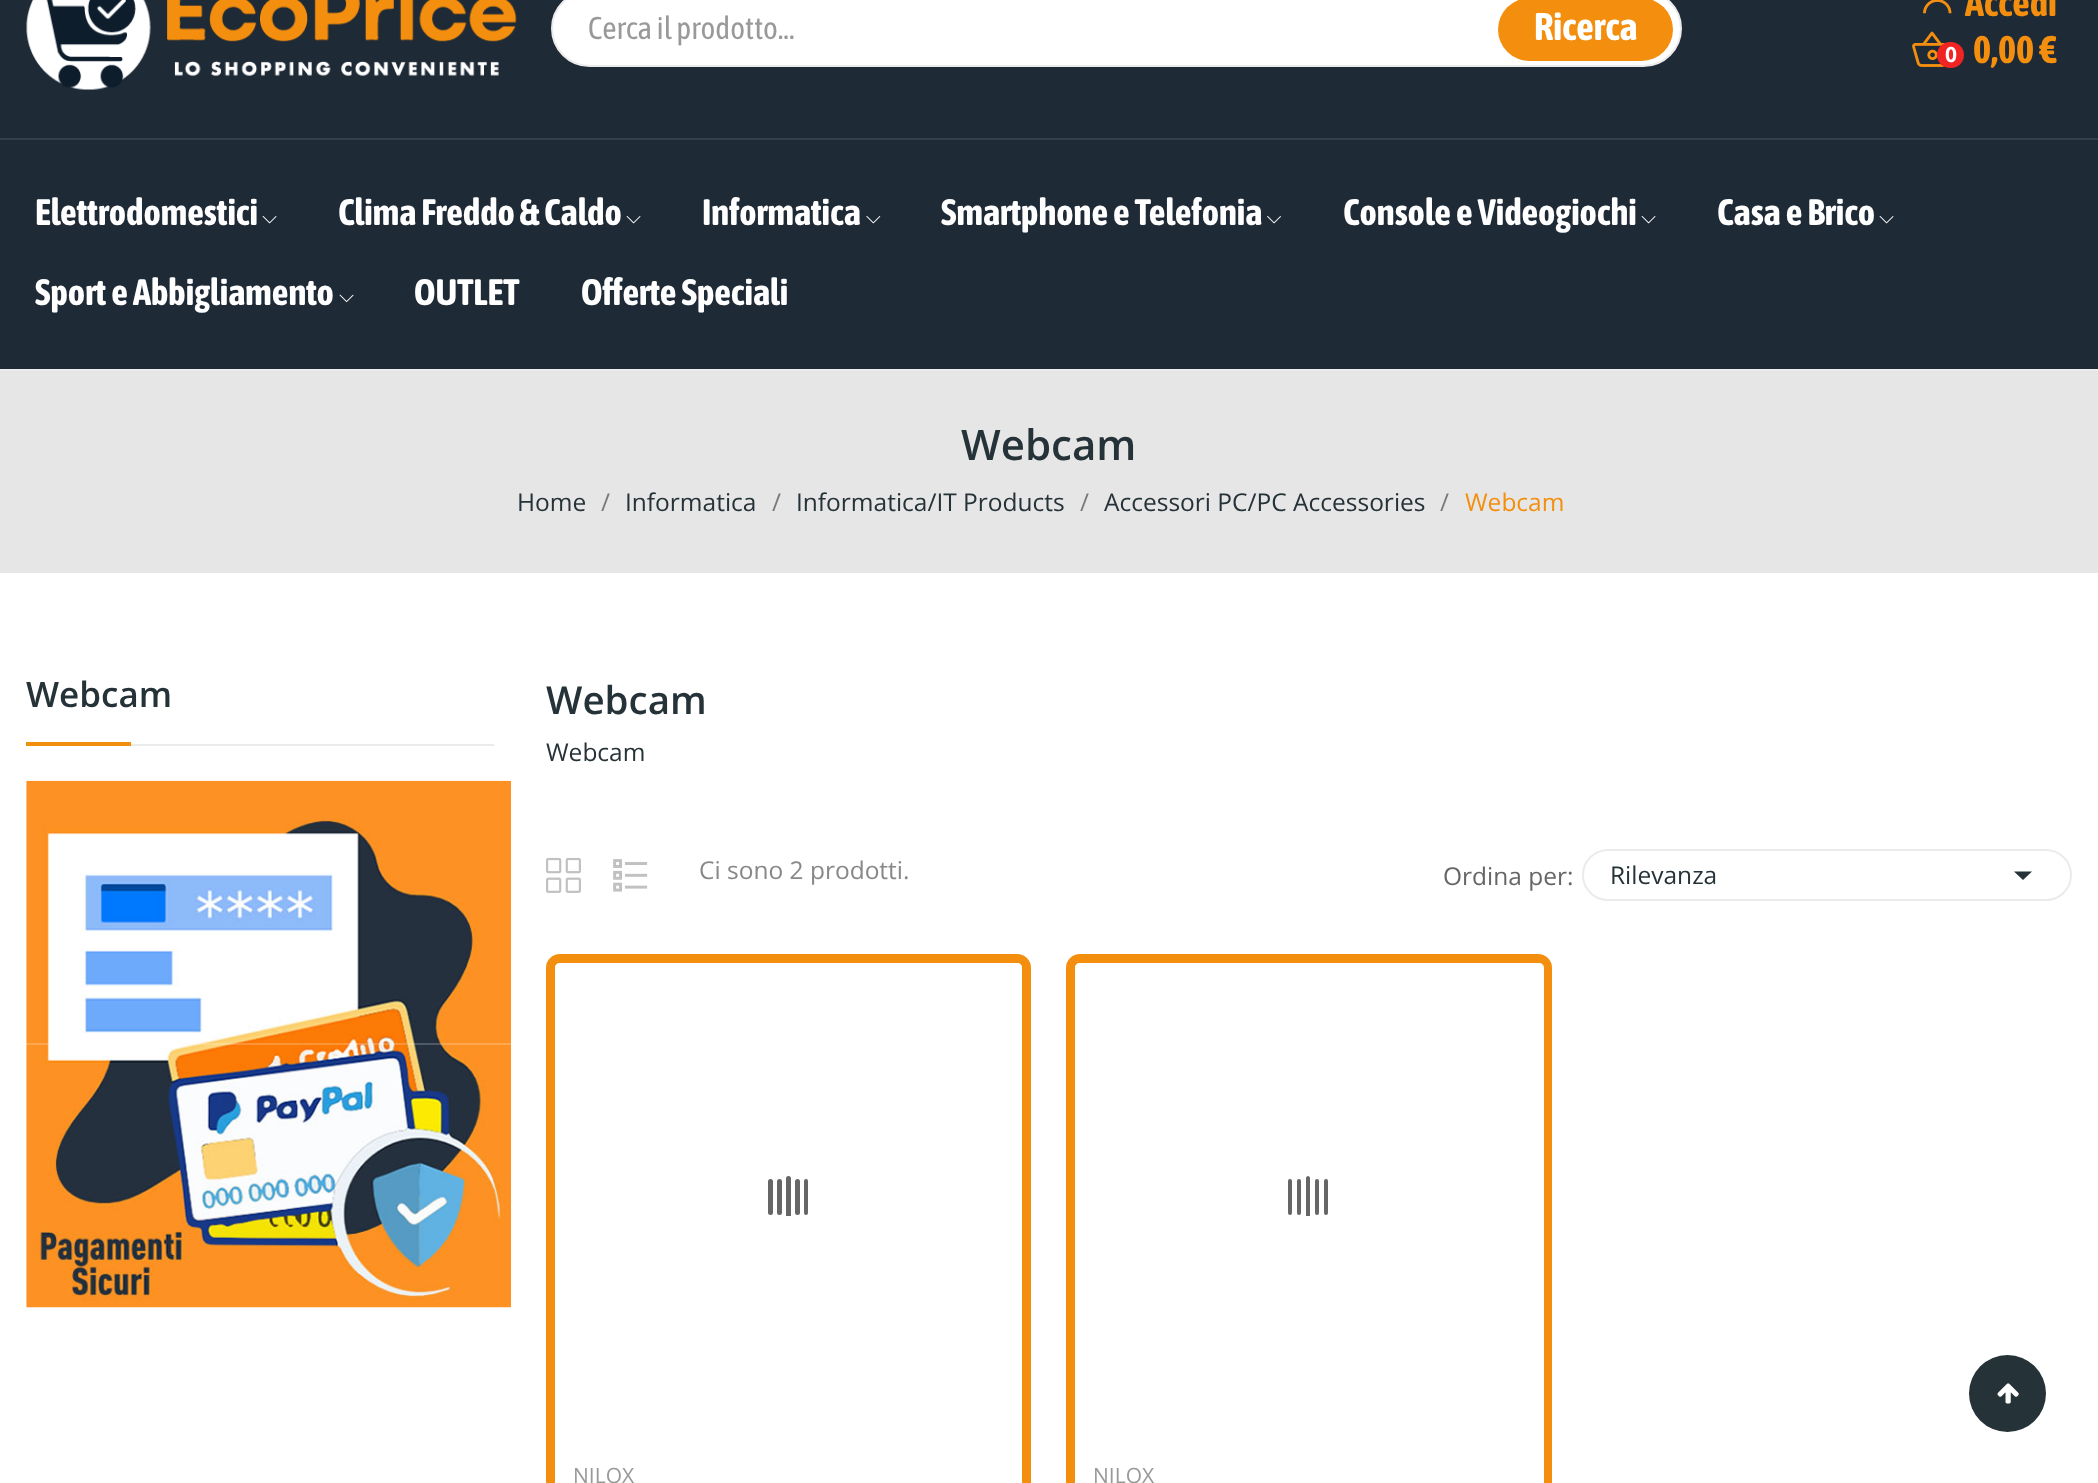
<svg xmlns="http://www.w3.org/2000/svg" width="2098" height="1483" viewBox="0 0 2098 1483">
  <defs>
    <clipPath id="clip1"><path d="M768 1176h41v40H768z"/></clipPath>
  </defs>
  <rect width="100%" height="100%" fill="#fff"/>
  <path d="M0 369h2098v2H0z" fill="#ebebeb"/>
  <path d="M0 0h2098v138H0z" fill="#1f2a37"/>
  <image x="26" y="0" width="491" height="90" href="img/1.png"/>
  <rect x="552" y="-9" width="1129" height="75" rx="37.5" fill="#fff" stroke="#ebebeb" stroke-width="2"/>
  <rect x="1498" y="-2" width="175" height="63" rx="31.5" fill="#f48e0e"/>
  <image x="1923" y="0" width="29" height="14" href="img/2.png"/>
  <image x="1912" y="31" width="33" height="36" href="img/3.png"/>
  <rect x="1937" y="42" width="27" height="26" rx="13" fill="#f12424"/>
  <path d="M0 140h2098v229H0z" fill="#1f2a37"/>
  <path d="M0 138h2098v2H0z" fill="#353f4b"/>
  <image x="262" y="216" width="15" height="8" href="img/4.png"/>
  <image x="626" y="216" width="15" height="8" href="img/4.png"/>
  <image x="866" y="216" width="15" height="8" href="img/5.png"/>
  <image x="1267" y="216" width="14" height="8" href="img/6.png"/>
  <image x="1641" y="216" width="15" height="8" href="img/4.png"/>
  <image x="1879" y="216" width="15" height="8" href="img/4.png"/>
  <image x="339" y="294" width="15" height="9" href="img/7.png"/>
  <path d="M0 371h2098v202H0z" fill="#e6e6e6"/>
  <path d="M131 744h363v2H131z" fill="#ebebeb"/>
  <path d="M26 742h105v4H26z" fill="#f48e0e"/>
  <image x="26" y="780" width="485" height="528" href="img/8.png"/>
  <path d="M26 1043h485v2H26z" fill="#ffffff33"/>
  <image x="546" y="857" width="35" height="36" href="img/9.png"/>
  <image x="613" y="859" width="35" height="33" href="img/10.png"/>
  <rect x="1583" y="850" width="488" height="50" rx="25" fill="none" stroke="#ebebeb" stroke-width="2"/>
  <path d="M2014 871.5H2032L2023 880Z" fill="#253237"/>
  <rect x="550.5" y="958.5" width="476" height="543" rx="9.5" fill="none" stroke="#f48e0e" stroke-width="9"/>
  <path d="M560 963H1017C1020 963 1022 965 1022 968V1430H555V968C555 965 557 963 560 963Z" fill="#fff"/>
  <rect x="768" y="1179" width="5" height="36" rx="2.5" fill="#666"/>
  <rect x="777" y="1179" width="5" height="36" rx="2.5" fill="#666"/>
  <g clip-path="url(#clip1)">
    <rect x="786" y="1176" width="5" height="42" rx="2.5" fill="#666"/>
  </g>
  <rect x="795" y="1179" width="5" height="36" rx="2.5" fill="#666"/>
  <rect x="804" y="1179" width="4" height="36" rx="2" fill="#666"/>
  <rect x="1070.5" y="958.5" width="477" height="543" rx="9.5" fill="none" stroke="#f48e0e" stroke-width="9"/>
  <path d="M1080 963H1539C1542 963 1544 965 1544 968V1430H1075V968C1075 965 1077 963 1080 963Z" fill="#fff"/>
  <rect x="1288" y="1179" width="4" height="36" rx="2" fill="#666"/>
  <rect x="1297" y="1179" width="4" height="36" rx="2" fill="#666"/>
  <path d="M1308 1176C1309 1176 1310 1177 1310 1178V1216H1306V1178C1306 1177 1307 1176 1308 1176Z" fill="#666"/>
  <rect x="1315" y="1179" width="4" height="36" rx="2" fill="#666"/>
  <rect x="1324" y="1179" width="4" height="36" rx="2" fill="#666"/>
  <path d="M1543 1430h1v53H1543z" fill="#fff"/>
  <circle cx="2007.5" cy="1393.5" r="38.5" fill="#253237"/>
  <image x="1997" y="1383" width="22" height="21" href="img/11.png"/>
  <text x="588" y="39" font-family="Asap Condensed" font-size="31.5" fill="#999">Cerca il prodotto...</text>
  <text x="1534" y="40" font-family="Asap Condensed" font-size="38.5" font-weight="bold" fill="#fff">Ricerca</text>
  <text x="1965" y="16" font-family="Asap Condensed" font-size="38.5" font-weight="bold" fill="#f48e0e">Accedi</text>
  <text x="1945" y="62" font-family="Open Sans" font-size="21" font-weight="bold" fill="#fff">0</text>
  <text x="1973" y="63" font-family="Asap Condensed" font-size="38.5" font-weight="bold" fill="#f48e0e">0,00 €</text>
  <g font-family="Asap Condensed" font-size="36.75" font-weight="bold" fill="#fff">
    <text x="35" y="225">Elettrodomestici</text>
    <text x="338" y="225">Clima Freddo &amp; Caldo</text>
    <text x="702" y="225">Informatica</text>
    <text x="941" y="225">Smartphone e Telefonia</text>
    <text x="1343" y="225">Console e Videogiochi</text>
    <text x="1717" y="225">Casa e Brico</text>
    <text x="35" y="305">Sport e Abbigliamento</text>
    <text x="414" y="305">OUTLET</text>
    <text x="581" y="305">Offerte Speciali</text>
  </g>
  <text x="961" y="460" font-family="Open Sans" font-size="42" font-weight="600" fill="#253237">Webcam</text>
  <text x="517" y="511" font-family="Open Sans" font-size="24.5" fill="#253237">Home</text>
  <text x="601" y="511" font-family="Open Sans" font-size="24.5" fill="#7a7a7a">/</text>
  <text x="625" y="511" font-family="Open Sans" font-size="24.5" fill="#253237">Informatica</text>
  <text x="772" y="511" font-family="Open Sans" font-size="24.5" fill="#7a7a7a">/</text>
  <text x="796" y="511" font-family="Open Sans" font-size="24.5" fill="#253237">Informatica/IT Products</text>
  <text x="1080" y="511" font-family="Open Sans" font-size="24.5" fill="#7a7a7a">/</text>
  <text x="1104" y="511" font-family="Open Sans" font-size="24.5" fill="#253237">Accessori PC/PC Accessories</text>
  <text x="1440" y="511" font-family="Open Sans" font-size="24.5" fill="#7a7a7a">/</text>
  <text x="1465" y="511" font-family="Open Sans" font-size="24.5" fill="#f48e0e">Webcam</text>
  <text x="26" y="707" font-family="Open Sans" font-size="35" font-weight="600" fill="#253237">Webcam</text>
  <text x="546" y="714" font-family="Open Sans" font-size="38.5" font-weight="600" fill="#253237">Webcam</text>
  <text x="546" y="761" font-family="Open Sans" font-size="24.5" fill="#253237">Webcam</text>
  <text x="699" y="879" font-family="Open Sans" font-size="24.5" fill="#888">Ci sono 2 prodotti.</text>
  <text x="1443" y="885" font-family="Open Sans" font-size="24.5" fill="#666">Ordina per:</text>
  <text x="1610" y="884" font-family="Open Sans" font-size="24.5" fill="#253237">Rilevanza</text>
  <g font-family="Open Sans" font-size="21" fill="#999">
    <text x="573" y="1483">NILOX</text>
    <text x="1093" y="1483">NILOX</text>
  </g>
</svg>
